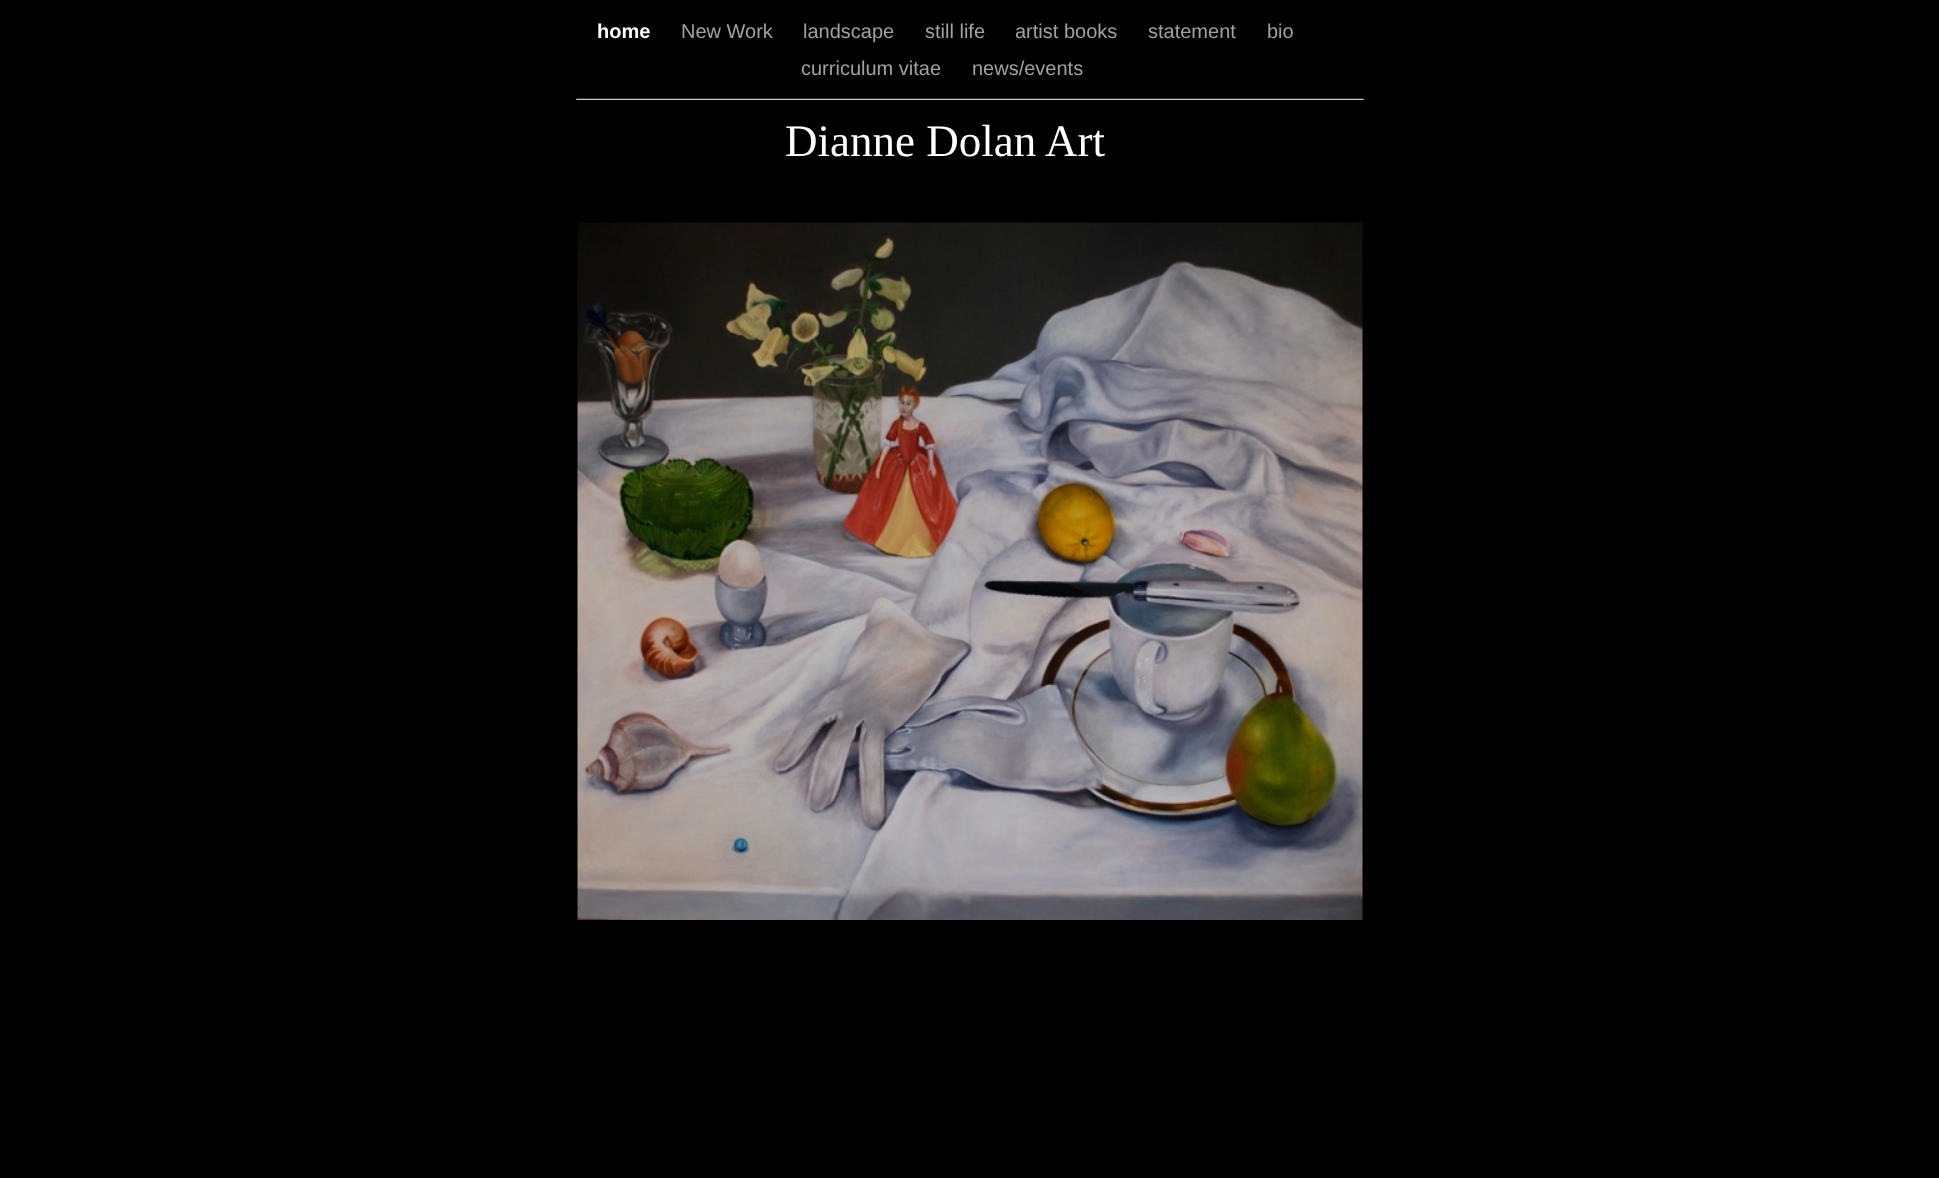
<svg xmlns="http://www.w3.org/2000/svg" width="1939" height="1178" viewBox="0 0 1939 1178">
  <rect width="100%" height="100%" fill="#000"/>
  <image x="576" y="98" width="788" height="2" href="img/1.png"/>
  <image x="577" y="222" width="786" height="698" href="img/2.png"/>
  <text x="597" y="38" font-family="Liberation Sans" font-size="20" font-weight="bold" fill="#fff">home</text>
  <g font-family="Liberation Sans" font-size="20" fill="#a1a1a1">
    <text x="681" y="38">New Work</text>
    <text x="803" y="38">landscape</text>
    <text x="925" y="38">still life</text>
    <text x="1015" y="38">artist books</text>
    <text x="1148" y="38">statement</text>
    <text x="1267" y="38">bio</text>
    <text x="801" y="75">curriculum vitae</text>
    <text x="972" y="75">news/events</text>
  </g>
  <text x="785" y="156" font-family="Liberation Serif" font-size="45" fill="#fff">Dianne Dolan Art</text>
</svg>
